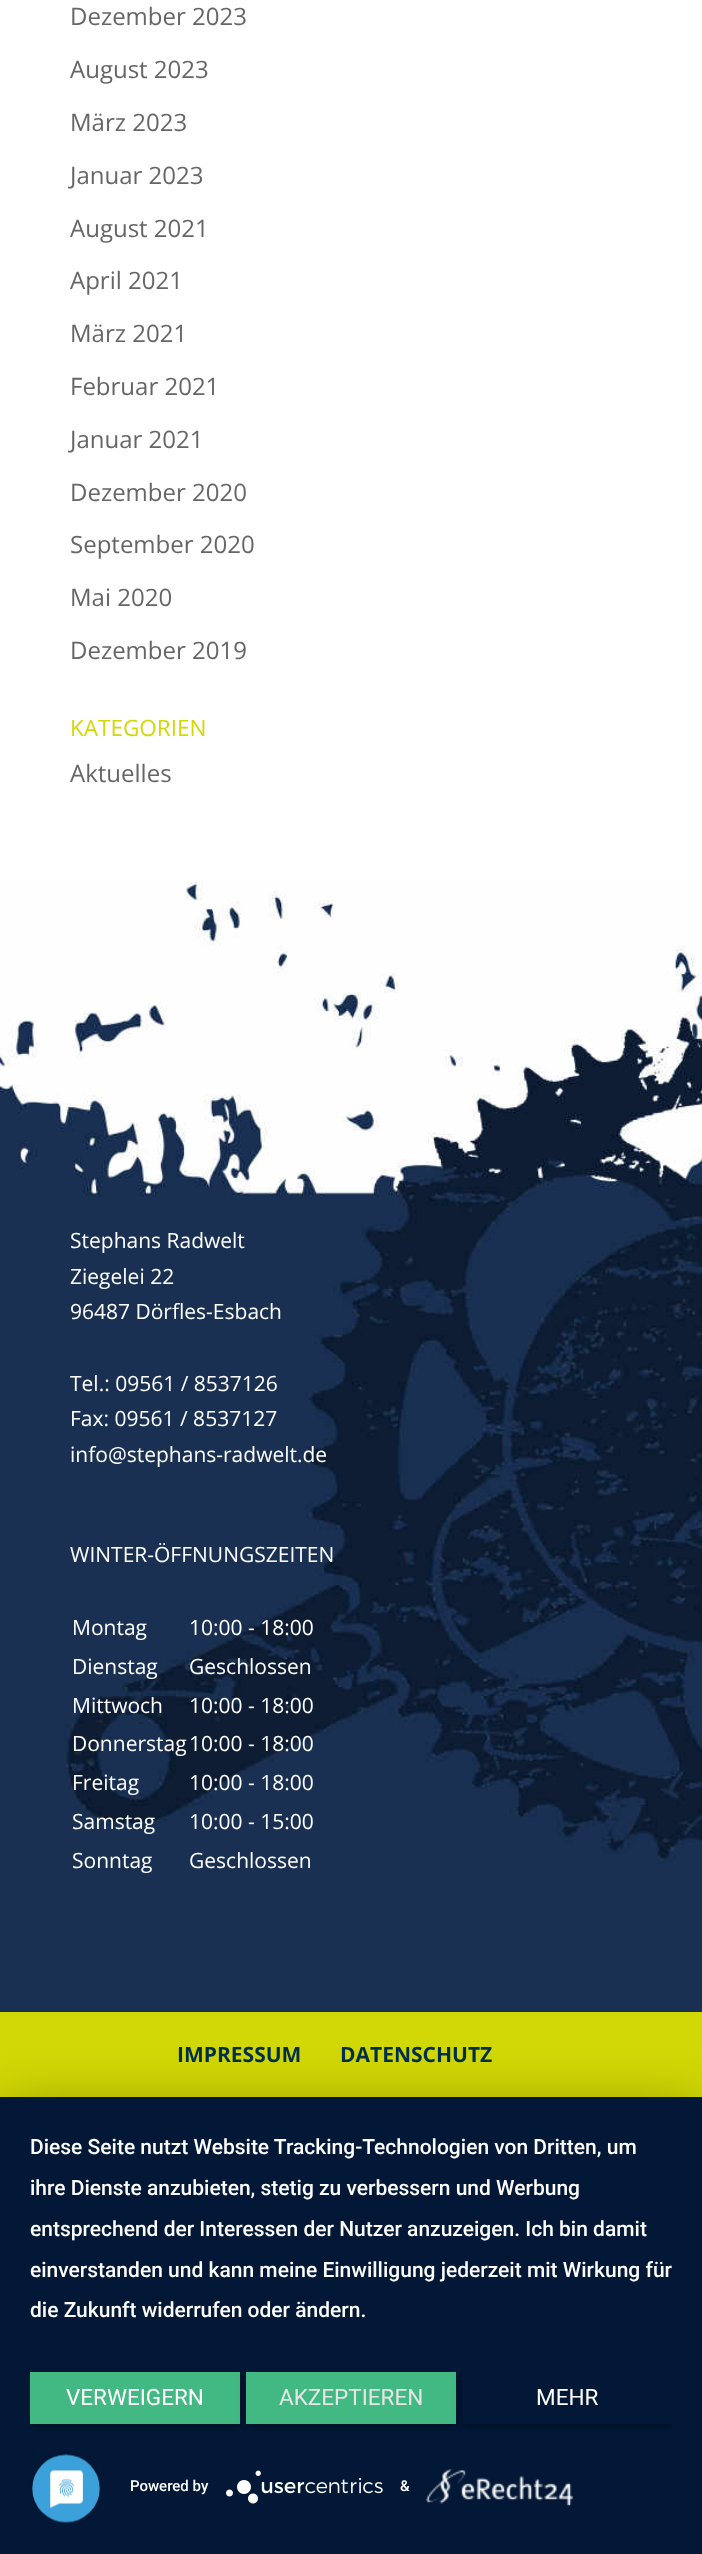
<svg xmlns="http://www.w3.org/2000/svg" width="702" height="2554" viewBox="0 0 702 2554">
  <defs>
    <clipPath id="clip1"><path d="M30 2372h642v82H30z"/></clipPath>
    <clipPath id="clip2"><path d="M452 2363H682V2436H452ZM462 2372H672V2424H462Z" clip-rule="evenodd"/></clipPath>
  </defs>
  <rect width="100%" height="100%" fill="#fff"/>
  <image x="0" y="881" width="702" height="1131" href="img/1.png"/>
  <path d="M0 2012h702v85H0z" fill="#d2d805"/>
  <path d="M0 2106h702v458H0z" fill="#0000004d" filter="blur(27px)"/>
  <path d="M0 2097h702v457H0z" fill="#021836"/>
  <g clip-path="url(#clip1)">
    <path d="M30 2373h210v53H30z" fill="#00000066" filter="blur(3px)"/>
  </g>
  <path d="M30 2372h210v52H30z" fill="#42b983"/>
  <g clip-path="url(#clip1)">
    <path d="M246 2373h210v53H246z" fill="#00000066" filter="blur(3px)"/>
  </g>
  <path d="M246 2372h210v52H246z" fill="#42b983"/>
  <g clip-path="url(#clip1)">
    <g clip-path="url(#clip2)">
      <path d="M462 2373h210v53H462z" fill="#00000066" filter="blur(3px)"/>
    </g>
  </g>
  <image x="226" y="2470" width="157" height="34" href="img/2.png"/>
  <image x="425" y="2469" width="148" height="37" href="img/3.png"/>
  <image x="31" y="2453" width="70" height="71" href="img/4.png"/>
  <g font-family="Open Sans" font-size="24" fill="#666">
    <text x="70" y="25">Dezember 2023</text>
    <text x="70" y="78">August 2023</text>
    <text x="70" y="131">März 2023</text>
    <text x="70" y="184">Januar 2023</text>
    <text x="70" y="237">August 2021</text>
    <text x="70" y="289">April 2021</text>
    <text x="70" y="342">März 2021</text>
    <text x="70" y="395">Februar 2021</text>
    <text x="70" y="448">Januar 2021</text>
    <text x="70" y="501">Dezember 2020</text>
    <text x="70" y="553">September 2020</text>
    <text x="70" y="606">Mai 2020</text>
    <text x="70" y="659">Dezember 2019</text>
  </g>
  <text x="70" y="736" font-family="Open Sans" font-size="22.5" fill="#d2d805">KATEGORIEN</text>
  <text x="70" y="782" font-family="Open Sans" font-size="24" fill="#666">Aktuelles</text>
  <g font-family="Open Sans" font-size="21" fill="#fff">
    <text x="70" y="1248">Stephans Radwelt</text>
    <text x="70" y="1284">Ziegelei 22</text>
    <text x="70" y="1319">96487 Dörfles-Esbach</text>
    <text x="70" y="1391">Tel.: 09561 / 8537126</text>
    <text x="70" y="1426">Fax: 09561 / 8537127</text>
    <text x="70" y="1462">info@stephans-radwelt.de</text>
    <text x="70" y="1562">WINTER-ÖFFNUNGSZEITEN</text>
    <text x="72" y="1635">Montag</text>
    <text x="189" y="1635">10:00 - 18:00</text>
    <text x="72" y="1674">Dienstag</text>
    <text x="189" y="1674">Geschlossen</text>
    <text x="72" y="1713">Mittwoch</text>
    <text x="189" y="1713">10:00 - 18:00</text>
    <text x="72" y="1751">Donnerstag</text>
    <text x="189" y="1751">10:00 - 18:00</text>
    <text x="72" y="1790">Freitag</text>
    <text x="189" y="1790">10:00 - 18:00</text>
    <text x="72" y="1829">Samstag</text>
    <text x="189" y="1829">10:00 - 15:00</text>
    <text x="72" y="1868">Sonntag</text>
    <text x="189" y="1868">Geschlossen</text>
  </g>
  <g font-family="Open Sans" font-size="21" font-weight="bold" fill="#002f4c">
    <text x="177" y="2062">IMPRESSUM</text>
    <text x="340" y="2062">DATENSCHUTZ</text>
  </g>
  <g font-family="Roboto" font-size="21" font-weight="500" fill="#fff">
    <text x="30" y="2154">Diese Seite nutzt Website Tracking-Technologien von Dritten, um</text>
    <text x="30" y="2195">ihre Dienste anzubieten, stetig zu verbessern und Werbung</text>
    <text x="30" y="2236">entsprechend der Interessen der Nutzer anzuzeigen. Ich bin damit</text>
    <text x="30" y="2277">einverstanden und kann meine Einwilligung jederzeit mit Wirkung für</text>
    <text x="30" y="2317">die Zukunft widerrufen oder ändern.</text>
  </g>
  <text x="66" y="2405" font-family="Roboto" font-size="22.5" fill="#fff">VERWEIGERN</text>
  <text x="279" y="2405" font-family="Roboto" font-size="22.5" fill="#e6e6e6">AKZEPTIEREN</text>
  <text x="536" y="2405" font-family="Roboto" font-size="22.5" fill="#fff">MEHR</text>
  <g font-family="Roboto" font-size="15" font-weight="500" fill="#fff">
    <text x="130" y="2491">Powered by</text>
    <text x="400" y="2491">&amp;</text>
  </g>
</svg>
